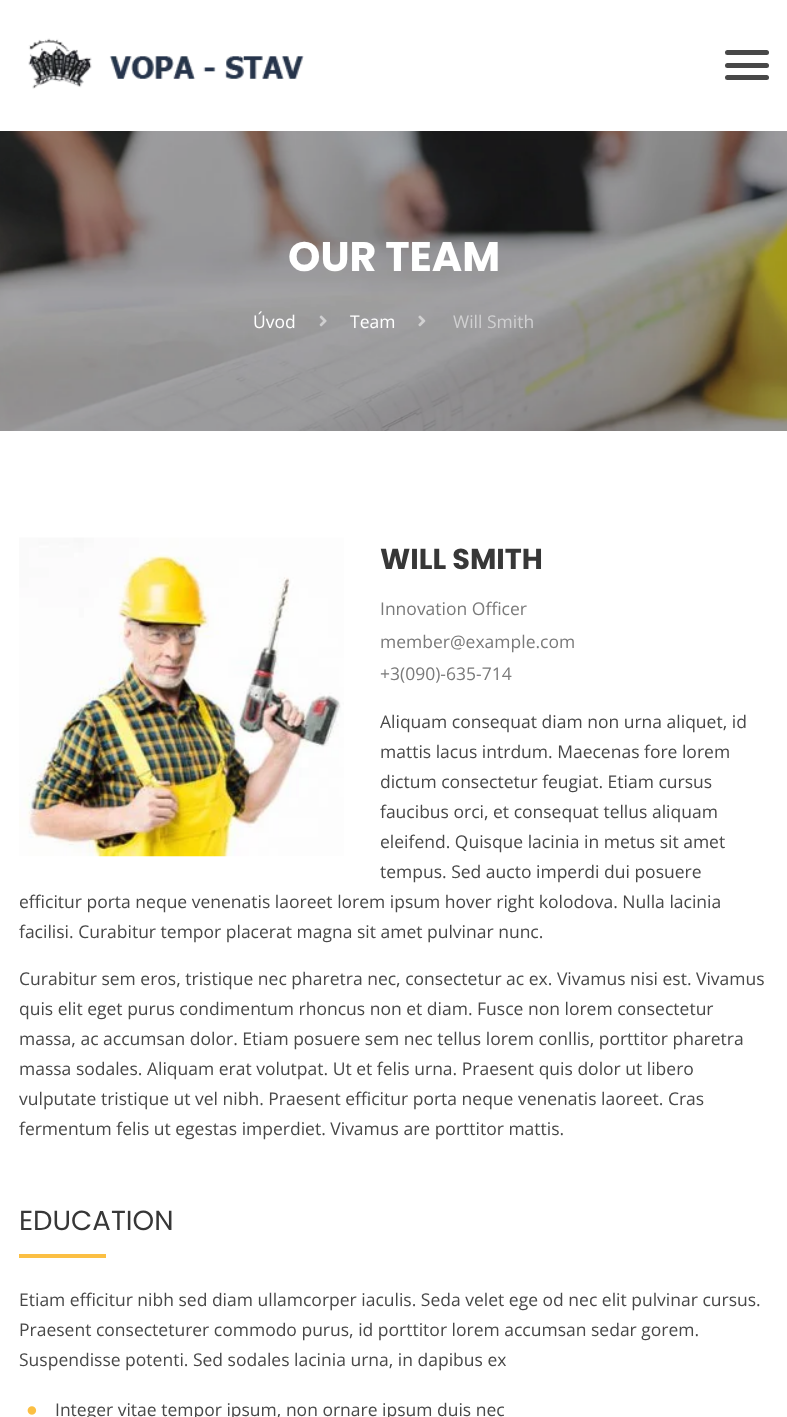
<svg xmlns="http://www.w3.org/2000/svg" width="787" height="1417" viewBox="0 0 787 1417">
  <rect width="100%" height="100%" fill="#fff"/>
  <image x="28" y="38" width="276" height="51" href="img/1.png"/>
  <rect x="725" y="75" width="44" height="5" rx="2.5" fill="#484848"/>
  <rect x="725" y="50" width="44" height="5" rx="2.5" fill="#484848"/>
  <rect x="725" y="63" width="44" height="5" rx="2.5" fill="#484848"/>
  <image x="0" y="131" width="787" height="300" href="img/2.png"/>
  <path d="M0 131h787v300H0z" fill="#0505054d"/>
  <image x="319" y="315" width="8" height="12" href="img/3.png"/>
  <image x="418" y="315" width="8" height="12" href="img/4.png"/>
  <image x="19" y="537" width="325" height="320" href="img/5.png"/>
  <path d="M19 1254h87v4H19z" fill="#fbbf43"/>
  <image x="27" y="1406" width="10" height="9" href="img/6.png"/>
  <text x="288" y="271" font-family="Poppins" font-size="41.25" font-weight="bold" fill="#fff">OUR TEAM</text>
  <g font-family="Open Sans" font-size="17.5" fill="#fff">
    <text x="253" y="328">Úvod</text>
    <text x="350" y="328">Team</text>
  </g>
  <text x="453" y="328" font-family="Open Sans" font-size="17.5" fill="#d0d0d1">Will Smith</text>
  <text x="380" y="569" font-family="Poppins" font-size="28.75" font-weight="bold" fill="#373737">WILL SMITH</text>
  <g font-family="Open Sans" font-size="17.5" fill="#7a7a7a">
    <text x="380" y="615">Innovation Officer</text>
    <text x="380" y="648">member@example.com</text>
    <text x="380" y="680">+3(090)-635-714</text>
  </g>
  <g font-family="Open Sans" font-size="17.5" fill="#484848">
    <text x="380" y="728">Aliquam consequat diam non urna aliquet, id</text>
    <text x="380" y="758">mattis lacus intrdum. Maecenas fore lorem</text>
    <text x="380" y="788">dictum consectetur feugiat. Etiam cursus</text>
    <text x="380" y="818">faucibus orci, et consequat tellus aliquam</text>
    <text x="380" y="848">eleifend. Quisque lacinia in metus sit amet</text>
    <text x="380" y="878">tempus. Sed aucto imperdi dui posuere</text>
    <text x="19" y="908">efficitur porta neque venenatis laoreet lorem ipsum hover right kolodova. Nulla lacinia</text>
    <text x="19" y="938">facilisi. Curabitur tempor placerat magna sit amet pulvinar nunc.</text>
    <text x="19" y="985">Curabitur sem eros, tristique nec pharetra nec, consectetur ac ex. Vivamus nisi est. Vivamus</text>
    <text x="19" y="1015">quis elit eget purus condimentum rhoncus non et diam. Fusce non lorem consectetur</text>
    <text x="19" y="1045">massa, ac accumsan dolor. Etiam posuere sem nec tellus lorem conllis, porttitor pharetra</text>
    <text x="19" y="1075">massa sodales. Aliquam erat volutpat. Ut et felis urna. Praesent quis dolor ut libero</text>
    <text x="19" y="1105">vulputate tristique ut vel nibh. Praesent efficitur porta neque venenatis laoreet. Cras</text>
    <text x="19" y="1135">fermentum felis ut egestas imperdiet. Vivamus are porttitor mattis.</text>
  </g>
  <text x="19" y="1230" font-family="Poppins" font-size="27.5" fill="#373737">EDUCATION</text>
  <g font-family="Open Sans" font-size="17.5" fill="#484848">
    <text x="19" y="1306">Etiam efficitur nibh sed diam ullamcorper iaculis. Seda velet ege od nec elit pulvinar cursus.</text>
    <text x="19" y="1336">Praesent consecteturer commodo purus, id porttitor lorem accumsan sedar gorem.</text>
    <text x="19" y="1366">Suspendisse potenti. Sed sodales lacinia urna, in dapibus ex</text>
    <text x="55" y="1416">Integer vitae tempor ipsum, non ornare ipsum duis nec</text>
  </g>
</svg>
